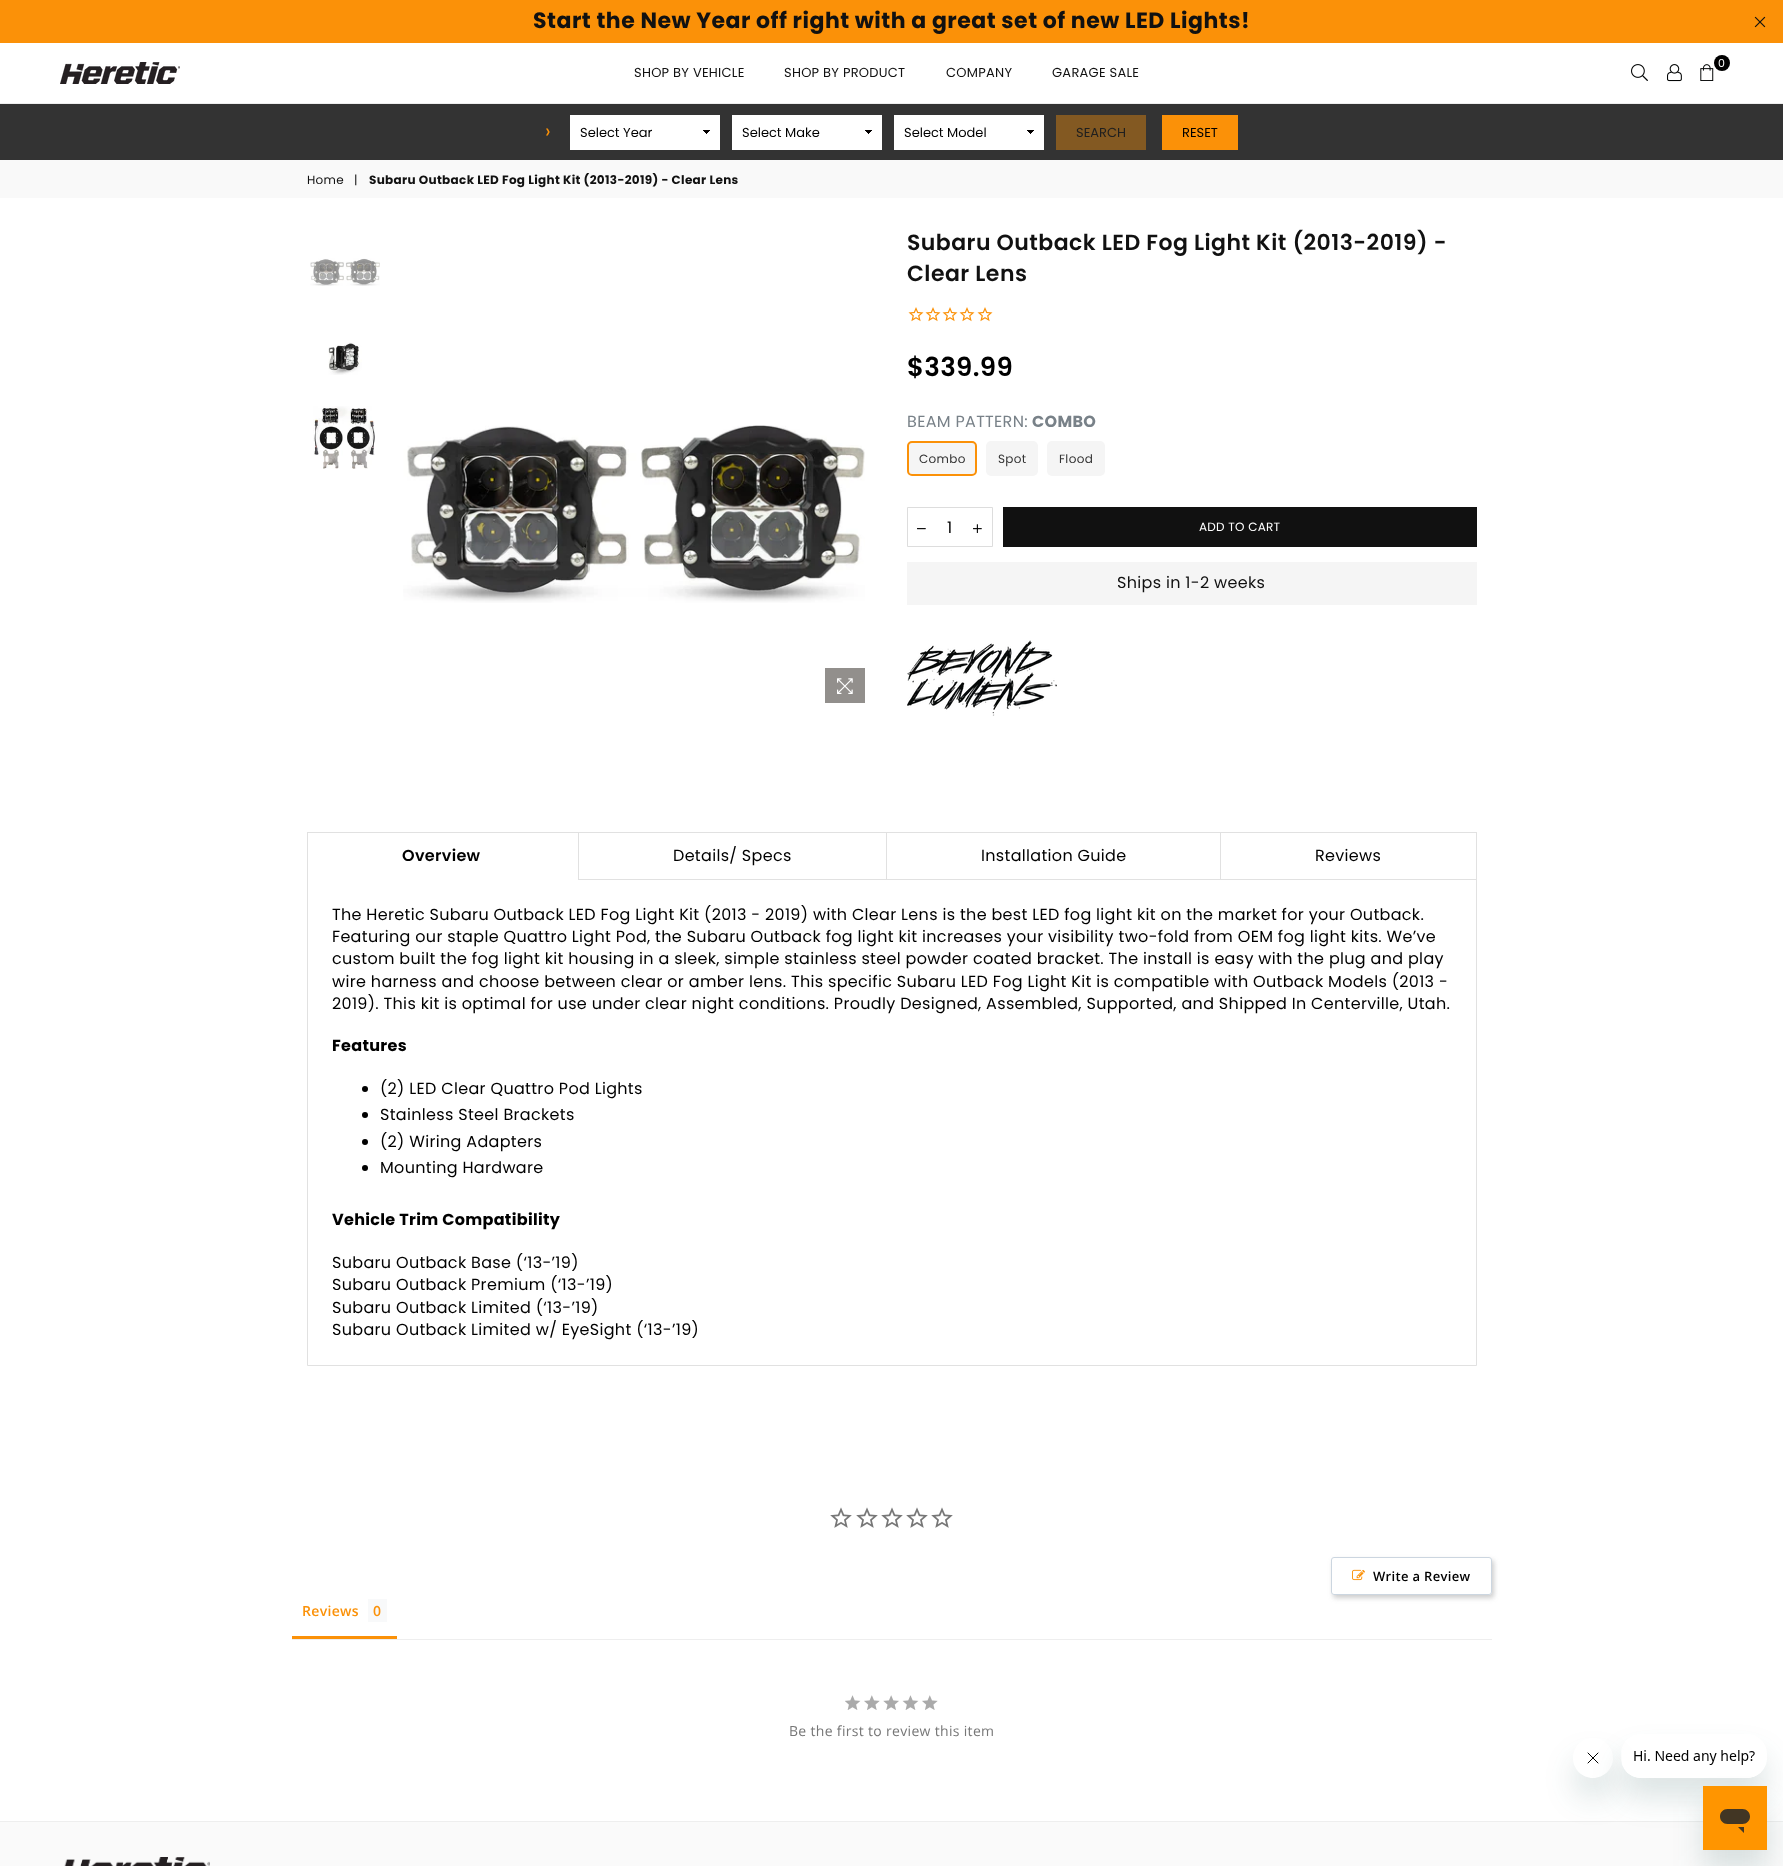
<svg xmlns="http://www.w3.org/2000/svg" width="1783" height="1866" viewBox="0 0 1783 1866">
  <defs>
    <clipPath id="clip1"><path d="M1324 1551H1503V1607H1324ZM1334 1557H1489C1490.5 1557 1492 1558.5 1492 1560V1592C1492 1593.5 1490.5 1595 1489 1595H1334C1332.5 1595 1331 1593.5 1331 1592V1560C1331 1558.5 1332.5 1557 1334 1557Z" clip-rule="evenodd"/></clipPath>
    <clipPath id="clip2"><path d="M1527 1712H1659V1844H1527ZM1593 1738C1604 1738 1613 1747 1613 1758C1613 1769 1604 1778 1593 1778C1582 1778 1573 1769 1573 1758C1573 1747 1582 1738 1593 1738Z" clip-rule="evenodd"/></clipPath>
    <clipPath id="clip3"><path d="M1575 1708H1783V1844H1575ZM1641 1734H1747C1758 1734 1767 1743 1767 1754V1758C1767 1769 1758 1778 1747 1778H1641C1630 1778 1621 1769 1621 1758V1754C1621 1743 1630 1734 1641 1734Z" clip-rule="evenodd"/></clipPath>
  </defs>
  <rect width="100%" height="100%" fill="#fff"/>
  <path d="M0 0h1783v43H0z" fill="#fb9108"/>
  <image x="1754" y="16" width="12" height="12" href="img/1.png"/>
  <path d="M0 103h1783v1H0z" fill="#eee"/>
  <image x="60" y="62" width="120" height="22" href="img/2.png"/>
  <circle cx="1722" cy="63" r="8" fill="#000"/>
  <image x="1700" y="64" width="14" height="17" href="img/3.png"/>
  <image x="1631" y="64" width="17" height="17" href="img/4.png"/>
  <image x="1667" y="64" width="15" height="18" href="img/5.png"/>
  <path d="M0 104h1783v56H0z" fill="#333"/>
  <path d="M570 115h150v35H570z" fill="#fff"/>
  <image x="703" y="130" width="7" height="4" href="img/6.png"/>
  <path d="M732 115h150v35H732z" fill="#fff"/>
  <image x="865" y="130" width="7" height="4" href="img/6.png"/>
  <path d="M894 115h150v35H894z" fill="#fff"/>
  <image x="1027" y="130" width="7" height="4" href="img/6.png"/>
  <path d="M1056 115h90v35H1056z" fill="#835922"/>
  <path d="M1162 115h76v35H1162z" fill="#fb9108"/>
  <path d="M0 160h1783v38H0z" fill="#f9f9f9"/>
  <image x="310" y="258" width="70" height="28" href="img/7.png"/>
  <image x="328" y="342" width="34" height="33" href="img/8.png"/>
  <image x="313" y="406" width="62" height="63" href="img/9.png"/>
  <image x="403" y="425" width="462" height="178" href="img/10.png"/>
  <path d="M825 668h40v35H825z" fill="#928f8c"/>
  <image x="837" y="678" width="16" height="16" href="img/11.png"/>
  <image x="908" y="307" width="16" height="15" href="img/12.png"/>
  <image x="925" y="307" width="16" height="15" href="img/12.png"/>
  <image x="942" y="307" width="16" height="15" href="img/12.png"/>
  <image x="959" y="307" width="16" height="15" href="img/12.png"/>
  <image x="977" y="307" width="16" height="15" href="img/12.png"/>
  <rect x="908" y="442" width="68" height="33" rx="4" fill="#f5f5f5" stroke="#fb9108" stroke-width="2"/>
  <rect x="986" y="441" width="52" height="35" rx="5" fill="#f5f5f5"/>
  <rect x="1047" y="441" width="58" height="35" rx="5" fill="#f5f5f5"/>
  <path d="M907.5 507.5h85v39H907.5z" fill="none" stroke="#ddd"/>
  <image x="917" y="528" width="9" height="2" href="img/13.png"/>
  <image x="973" y="524" width="9" height="9" href="img/14.png"/>
  <path d="M1003 507h474v40H1003z" fill="#111"/>
  <path d="M907 562h570v43H907z" fill="#f5f5f5"/>
  <image x="907" y="640" width="150" height="76" href="img/15.png"/>
  <path d="M307.5 879.5h1169v486H307.5z" fill="none" stroke="#e1e1e1"/>
  <path d="M308 879h270v1H308z" fill="#fff"/>
  <path d="M307 832h272v1H307z" fill="#e1e1e1"/>
  <path d="M578 832h1v48H578z" fill="#e1e1e1"/>
  <path d="M307 832h1v48H307z" fill="#e1e1e1"/>
  <path d="M578 832h309v1H578z" fill="#e1e1e1"/>
  <path d="M886 832h1v48H886z" fill="#e1e1e1"/>
  <path d="M886 832h335v1H886z" fill="#e1e1e1"/>
  <path d="M1220 832h1v48H1220z" fill="#e1e1e1"/>
  <path d="M1220 832h257v1H1220z" fill="#e1e1e1"/>
  <path d="M1476 832h1v48H1476z" fill="#e1e1e1"/>
  <circle cx="365" cy="1089" r="3" fill="#000"/>
  <circle cx="365" cy="1115" r="3" fill="#000"/>
  <circle cx="365" cy="1142" r="3" fill="#000"/>
  <circle cx="365" cy="1168" r="3" fill="#000"/>
  <image x="830" y="1507" width="22" height="21" href="img/16.png"/>
  <image x="856" y="1507" width="22" height="21" href="img/16.png"/>
  <image x="881" y="1507" width="22" height="21" href="img/16.png"/>
  <image x="906" y="1507" width="22" height="21" href="img/16.png"/>
  <image x="931" y="1507" width="22" height="21" href="img/16.png"/>
  <g clip-path="url(#clip1)">
    <rect x="1333" y="1560" width="161" height="38" rx="3" fill="#8888886b" filter="blur(2.5px)"/>
  </g>
  <rect x="1331.5" y="1557.5" width="160" height="37" rx="2.5" fill="none" stroke="#ccd6e0"/>
  <image x="1352" y="1569" width="13" height="12" href="img/17.png"/>
  <path d="M292 1639h1200v1H292z" fill="#eee"/>
  <path d="M292 1636h105v3H292z" fill="#fb9108"/>
  <path d="M368 1599h19v23H368z" fill="#f8f9fa"/>
  <image x="845" y="1695" width="93" height="15" href="img/18.png"/>
  <path d="M0 1822h1783v44H0z" fill="#fafafa"/>
  <path d="M0 1821h1783v1H0z" fill="#eee"/>
  <g clip-path="url(#clip2)">
    <rect x="1573" y="1758" width="40" height="40" rx="20" fill="#17494d26" filter="blur(15px)"/>
  </g>
  <image x="1587" y="1752" width="12" height="12" href="img/20.png"/>
  <g clip-path="url(#clip3)">
    <rect x="1621" y="1754" width="146" height="44" rx="20" fill="#17494d26" filter="blur(15px)"/>
  </g>
  <image x="1622" y="1750" width="139" height="28" href="img/19.png"/>
  <path d="M1703 1806h64v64H1703z" fill="#17494d26" filter="blur(15px)"/>
  <image x="1703" y="1786" width="64" height="64" href="img/21.png"/>
  <image x="64" y="1857" width="146" height="9" href="img/22.png"/>
  <text x="533" y="28" font-family="Poppins" font-size="22" font-weight="bold" letter-spacing="0.5" fill="#111">Start the New Year off right with a great set of new LED Lights!</text>
  <g font-family="Poppins" font-size="13" letter-spacing="0.25" fill="#111">
    <text x="634" y="77">SHOP BY VEHICLE</text>
    <text x="784" y="77">SHOP BY PRODUCT</text>
    <text x="946" y="77">COMPANY</text>
    <text x="1052" y="77">GARAGE SALE</text>
  </g>
  <text x="1718" y="67" font-family="Poppins" font-size="11" letter-spacing="0.32" fill="#fff">0</text>
  <text x="545" y="138" font-family="Poppins" font-size="20" fill="#fb9108">›</text>
  <g font-family="Poppins" font-size="13" fill="#000">
    <text x="580" y="137">Select Year</text>
    <text x="742" y="137">Select Make</text>
    <text x="904" y="137">Select Model</text>
  </g>
  <text x="1076" y="137" font-family="Poppins" font-size="13" fill="#1f1f1f">SEARCH</text>
  <text x="1182" y="137" font-family="Poppins" font-size="13" fill="#000">RESET</text>
  <g font-family="Poppins" font-size="12" letter-spacing="0.32" fill="#111">
    <text x="307" y="184">Home</text>
    <text x="354" y="184">|</text>
  </g>
  <text x="369" y="184" font-family="Poppins" font-size="12" font-weight="bold" letter-spacing="0.32" fill="#111">Subaru Outback LED Fog Light Kit (2013-2019) - Clear Lens</text>
  <g font-family="Poppins" font-size="22" font-weight="600" letter-spacing="0.45" fill="#111">
    <text x="907" y="250">Subaru Outback LED Fog Light Kit (2013-2019) -</text>
    <text x="907" y="281">Clear Lens</text>
  </g>
  <text x="907" y="376" font-family="Poppins" font-size="26" font-weight="600" letter-spacing="0.32" fill="#000">$339.99</text>
  <text x="907" y="427" font-family="Poppins" font-size="16" letter-spacing="0.32" fill="#788188">BEAM PATTERN:</text>
  <text x="1032" y="427" font-family="Poppins" font-size="16" font-weight="bold" letter-spacing="0.32" fill="#788188">COMBO</text>
  <g font-family="Poppins" font-size="12" letter-spacing="0.32" fill="#333">
    <text x="919" y="463">Combo</text>
    <text x="998" y="463">Spot</text>
    <text x="1059" y="463">Flood</text>
  </g>
  <text x="947" y="533" font-family="Poppins" font-size="16" fill="#000">1</text>
  <text x="1199" y="531" font-family="Poppins" font-size="12" letter-spacing="0.25" fill="#fff">ADD TO CART</text>
  <text x="1117" y="588" font-family="Poppins" font-size="16" letter-spacing="0.32" fill="#111">Ships in 1-2 weeks</text>
  <text x="402" y="861" font-family="Poppins" font-size="16" font-weight="600" letter-spacing="0.32" fill="#000">Overview</text>
  <g font-family="Poppins" font-size="16" letter-spacing="0.32" fill="#000">
    <text x="673" y="861">Details/ Specs</text>
    <text x="981" y="861">Installation Guide</text>
    <text x="1315" y="861">Reviews</text>
    <text x="332" y="920">The Heretic Subaru Outback LED Fog Light Kit (2013 - 2019) with Clear Lens is the best LED fog light kit on the market for your Outback.</text>
    <text x="332" y="942">Featuring our staple Quattro Light Pod, the Subaru Outback fog light kit increases your visibility two-fold from OEM fog light kits. We’ve</text>
    <text x="332" y="964">custom built the fog light kit housing in a sleek, simple stainless steel powder coated bracket. The install is easy with the plug and play</text>
    <text x="332" y="987">wire harness and choose between clear or amber lens. This specific Subaru LED Fog Light Kit is compatible with Outback Models (2013 -</text>
    <text x="332" y="1009">2019). This kit is optimal for use under clear night conditions. Proudly Designed, Assembled, Supported, and Shipped In Centerville, Utah.</text>
  </g>
  <text x="332" y="1051" font-family="Poppins" font-size="16" font-weight="bold" letter-spacing="0.32" fill="#000">Features</text>
  <g font-family="Poppins" font-size="16" letter-spacing="0.32" fill="#000">
    <text x="380" y="1094">(2) LED Clear Quattro Pod Lights</text>
    <text x="380" y="1120">Stainless Steel Brackets</text>
    <text x="380" y="1147">(2) Wiring Adapters</text>
    <text x="380" y="1173">Mounting Hardware</text>
  </g>
  <text x="332" y="1225" font-family="Poppins" font-size="16" font-weight="bold" letter-spacing="0.32" fill="#000">Vehicle Trim Compatibility</text>
  <g font-family="Poppins" font-size="16" letter-spacing="0.32" fill="#000">
    <text x="332" y="1268">Subaru Outback Base (‘13-’19)</text>
    <text x="332" y="1290">Subaru Outback Premium (‘13-’19)</text>
    <text x="332" y="1313">Subaru Outback Limited (‘13-’19)</text>
    <text x="332" y="1335">Subaru Outback Limited w/ EyeSight (‘13-’19)</text>
  </g>
  <text x="1373" y="1581" font-family="Open Sans" font-size="13" font-weight="600" letter-spacing="0.32" fill="#000">Write a Review</text>
  <g font-family="Open Sans" font-size="14" font-weight="600" letter-spacing="0.32" fill="#fb9108">
    <text x="302" y="1616">Reviews</text>
    <text x="373" y="1616">0</text>
  </g>
  <text x="789" y="1736" font-family="Open Sans" font-size="14" letter-spacing="0.32" fill="#777">Be the first to review this item</text>
</svg>
